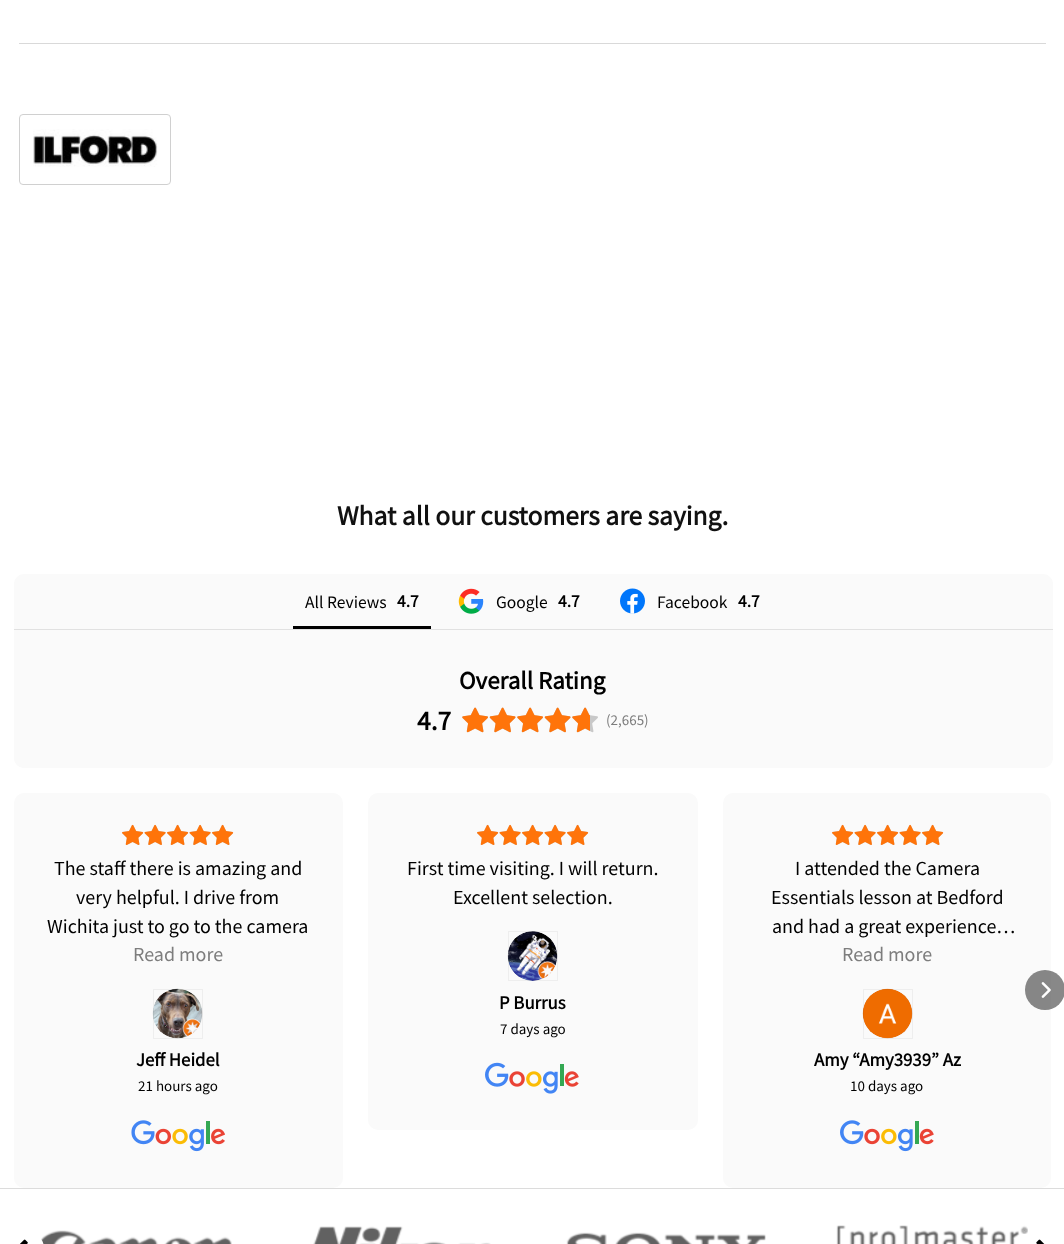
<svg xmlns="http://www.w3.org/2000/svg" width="1064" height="1244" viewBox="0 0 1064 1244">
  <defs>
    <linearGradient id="g1" gradientUnits="userSpaceOnUse" x1="178" y1="989" x2="178" y2="1039"><stop offset="0" stop-color="#f2f2f2"/><stop offset="1" stop-color="#f7f7f7"/></linearGradient>
    <linearGradient id="g2" gradientUnits="userSpaceOnUse" x1="533" y1="931" x2="533" y2="981"><stop offset="0" stop-color="#f2f2f2"/><stop offset="1" stop-color="#f7f7f7"/></linearGradient>
    <linearGradient id="g3" gradientUnits="userSpaceOnUse" x1="888" y1="989" x2="888" y2="1039"><stop offset="0" stop-color="#f2f2f2"/><stop offset="1" stop-color="#f7f7f7"/></linearGradient>
  </defs>
  <rect width="100%" height="100%" fill="#fff"/>
  <path d="M19 43h1027v1H19z" fill="#d9d9d9"/>
  <rect x="19.5" y="114.5" width="151" height="70" rx="3.5" fill="none" stroke="#d0d0d0"/>
  <image x="33" y="129" width="125" height="38" href="img/1.png"/>
  <path d="M24 574H1043C1048.5 574 1053 578.5 1053 584V630H14V584C14 578.5 18.5 574 24 574Z" fill="#fafafa"/>
  <path d="M14 629h1039v1H14z" fill="#e1e1e1"/>
  <path d="M293 626h138v3H293z" fill="#000"/>
  <image x="458" y="588" width="26" height="26" href="img/2.png"/>
  <image x="620" y="588" width="25" height="26" href="img/3.png"/>
  <path d="M14 630H1053V758C1053 763.5 1048.5 768 1043 768H24C18.5 768 14 763.5 14 758Z" fill="#fafafa"/>
  <image x="462" y="707" width="26" height="26" href="img/4.png"/>
  <image x="462" y="707" width="26" height="26" href="img/5.png"/>
  <image x="489" y="707" width="27" height="26" href="img/6.png"/>
  <image x="489" y="707" width="27" height="26" href="img/7.png"/>
  <image x="517" y="707" width="26" height="26" href="img/4.png"/>
  <image x="517" y="707" width="26" height="26" href="img/5.png"/>
  <image x="544" y="707" width="27" height="26" href="img/6.png"/>
  <image x="544" y="707" width="27" height="26" href="img/7.png"/>
  <image x="572" y="707" width="26" height="26" href="img/4.png"/>
  <image x="572" y="707" width="18" height="26" href="img/8.png"/>
  <rect x="14" y="793" width="329" height="395" rx="10" fill="#fafafa"/>
  <image x="122" y="825" width="21" height="20" href="img/10.png"/>
  <image x="122" y="824" width="22" height="21" href="img/9.png"/>
  <image x="144" y="825" width="22" height="20" href="img/12.png"/>
  <image x="144" y="824" width="22" height="21" href="img/11.png"/>
  <image x="167" y="825" width="21" height="20" href="img/10.png"/>
  <image x="167" y="824" width="22" height="21" href="img/9.png"/>
  <image x="189" y="825" width="22" height="20" href="img/12.png"/>
  <image x="189" y="824" width="22" height="21" href="img/11.png"/>
  <image x="212" y="825" width="21" height="20" href="img/10.png"/>
  <image x="212" y="824" width="22" height="21" href="img/9.png"/>
  <circle cx="178" cy="1014" r="25" fill="url(#g1)"/>
  <image x="152" y="988" width="51" height="51" href="img/13.png"/>
  <path d="M153.5 989.5h49v49H153.5z" fill="none" stroke="#1111110d"/>
  <image x="131" y="1120" width="94" height="32" href="img/14.png"/>
  <rect x="368" y="793" width="330" height="337" rx="10" fill="#fafafa"/>
  <image x="477" y="825" width="21" height="20" href="img/10.png"/>
  <image x="477" y="824" width="22" height="21" href="img/9.png"/>
  <image x="499" y="825" width="22" height="20" href="img/12.png"/>
  <image x="499" y="824" width="22" height="21" href="img/11.png"/>
  <image x="522" y="825" width="21" height="20" href="img/10.png"/>
  <image x="522" y="824" width="22" height="21" href="img/9.png"/>
  <image x="544" y="825" width="22" height="20" href="img/12.png"/>
  <image x="544" y="824" width="22" height="21" href="img/11.png"/>
  <image x="567" y="825" width="21" height="20" href="img/10.png"/>
  <image x="567" y="824" width="22" height="21" href="img/9.png"/>
  <circle cx="533" cy="956" r="25" fill="url(#g2)"/>
  <image x="507" y="931" width="51" height="50" href="img/15.png"/>
  <path d="M508.5 931.5h49v49H508.5z" fill="none" stroke="#1111110d"/>
  <image x="485" y="1062" width="94" height="32" href="img/16.png"/>
  <rect x="723" y="793" width="328" height="395" rx="10" fill="#fafafa"/>
  <image x="832" y="825" width="21" height="20" href="img/10.png"/>
  <image x="832" y="824" width="22" height="21" href="img/9.png"/>
  <image x="854" y="825" width="22" height="20" href="img/12.png"/>
  <image x="854" y="824" width="22" height="21" href="img/11.png"/>
  <image x="877" y="825" width="21" height="20" href="img/10.png"/>
  <image x="877" y="824" width="22" height="21" href="img/9.png"/>
  <image x="899" y="825" width="22" height="20" href="img/12.png"/>
  <image x="899" y="824" width="22" height="21" href="img/11.png"/>
  <image x="922" y="825" width="21" height="20" href="img/10.png"/>
  <image x="922" y="824" width="22" height="21" href="img/9.png"/>
  <circle cx="888" cy="1014" r="25" fill="url(#g3)"/>
  <image x="862" y="988" width="51" height="51" href="img/17.png"/>
  <path d="M863.5 989.5h49v49H863.5z" fill="none" stroke="#1111110d"/>
  <image x="840" y="1120" width="94" height="32" href="img/18.png"/>
  <circle cx="1045" cy="990" r="20" fill="#11111180"/>
  <image x="1041" y="982" width="10" height="16" href="img/19.png"/>
  <path d="M0 1188h1064v1H0z" fill="#dcdcdc"/>
  <image x="40" y="1230" width="192" height="14" href="img/20.png"/>
  <image x="313" y="1226" width="178" height="18" href="img/21.png"/>
  <image x="566" y="1232" width="200" height="12" href="img/22.png"/>
  <image x="836" y="1225" width="192" height="19" href="img/23.png"/>
  <rect y="1230" width="44" height="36" rx="22" fill="#fff"/>
  <image x="20" y="1239" width="8" height="5" href="img/24.png"/>
  <image x="1036" y="1239" width="9" height="5" href="img/25.png"/>
  <text x="337" y="525" font-family="Source Sans Pro" font-size="27.5" font-weight="bold" fill="#111">What all our customers are saying.</text>
  <text x="305" y="608" font-family="Source Sans Pro" font-size="17.5" fill="#000">All Reviews</text>
  <text x="397" y="607" font-family="Source Sans Pro" font-size="17.5" font-weight="bold" fill="#000">4.7</text>
  <text x="496" y="608" font-family="Source Sans Pro" font-size="17.5" fill="#000">Google</text>
  <text x="558" y="607" font-family="Source Sans Pro" font-size="17.5" font-weight="bold" fill="#000">4.7</text>
  <text x="657" y="608" font-family="Source Sans Pro" font-size="17.5" fill="#000">Facebook</text>
  <text x="738" y="607" font-family="Source Sans Pro" font-size="17.5" font-weight="bold" fill="#000">4.7</text>
  <text x="459" y="689" font-family="Source Sans Pro" font-size="25" font-weight="bold" fill="#000">Overall Rating</text>
  <text x="417" y="730" font-family="Source Sans Pro" font-size="27.5" font-weight="bold" fill="#000">4.7</text>
  <text x="606" y="725" font-family="Source Sans Pro" font-size="15" fill="#7d7d7d">(2,665)</text>
  <g font-family="Source Sans Pro" font-size="20" fill="#000">
    <text x="54" y="875">The staff there is amazing and</text>
    <text x="76" y="904">very helpful. I drive from</text>
    <text x="47" y="933">Wichita just to go to the camera</text>
  </g>
  <text x="133" y="961" font-family="Source Sans Pro" font-size="20" fill="#7d7d7d">Read more</text>
  <text x="136" y="1066" font-family="Source Sans Pro" font-size="18.75" font-weight="bold" fill="#000">Jeff Heidel</text>
  <text x="138" y="1091" font-family="Source Sans Pro" font-size="15" fill="#000">21 hours ago</text>
  <g font-family="Source Sans Pro" font-size="20" fill="#000">
    <text x="407" y="875">First time visiting. I will return.</text>
    <text x="453" y="904">Excellent selection.</text>
  </g>
  <text x="499" y="1009" font-family="Source Sans Pro" font-size="18.75" font-weight="bold" fill="#000">P Burrus</text>
  <text x="500" y="1034" font-family="Source Sans Pro" font-size="15" fill="#000">7 days ago</text>
  <g font-family="Source Sans Pro" font-size="20" fill="#000">
    <text x="795" y="875">I attended the Camera</text>
    <text x="771" y="904">Essentials lesson at Bedford</text>
    <text x="772" y="933">and had a great experience…</text>
  </g>
  <text x="842" y="961" font-family="Source Sans Pro" font-size="20" fill="#7d7d7d">Read more</text>
  <text x="814" y="1066" font-family="Source Sans Pro" font-size="18.75" font-weight="bold" fill="#000">Amy “Amy3939” Az</text>
  <text x="850" y="1091" font-family="Source Sans Pro" font-size="15" fill="#000">10 days ago</text>
</svg>
